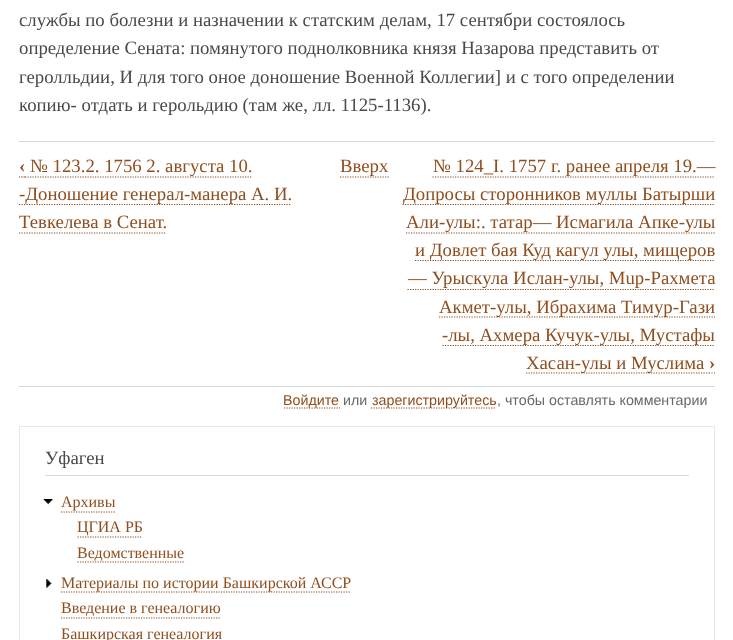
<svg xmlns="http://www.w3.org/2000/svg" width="733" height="640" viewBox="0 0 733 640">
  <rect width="100%" height="100%" fill="#fff"/>
  <path d="M19 141h696v1H19z" fill="#d6d6d6"/>
  <path d="M19 386h696v1H19z" fill="#d6d6d6"/>
  <path d="M19 177H20M21 177H22.5M23.5 177H25" fill="none" stroke="#8f4e1e" stroke-width="1.2"/>
  <path d="M25 177H252.5" fill="none" stroke="#8f4e1e" stroke-width="1.2" stroke-dasharray="1.25 1.25"/>
  <path d="M19 204.5H291" fill="none" stroke="#8f4e1e" stroke-width="1.2" stroke-dasharray="1.25 1.25"/>
  <path d="M19 233H166" fill="none" stroke="#8f4e1e" stroke-width="1.2" stroke-dasharray="1.25 1.25"/>
  <path d="M340 177H389" fill="none" stroke="#8f4e1e" stroke-width="1.2" stroke-dasharray="1.25 1.25"/>
  <path d="M432.5 177H715" fill="none" stroke="#8f4e1e" stroke-width="1.2" stroke-dasharray="1.25 1.25"/>
  <path d="M402.5 204.5H715" fill="none" stroke="#8f4e1e" stroke-width="1.2" stroke-dasharray="1.25 1.25"/>
  <path d="M406 233H715" fill="none" stroke="#8f4e1e" stroke-width="1.2" stroke-dasharray="1.25 1.25"/>
  <path d="M415 260.5H715" fill="none" stroke="#8f4e1e" stroke-width="1.2" stroke-dasharray="1.25 1.25"/>
  <path d="M407.5 289.5H715" fill="none" stroke="#8f4e1e" stroke-width="1.2" stroke-dasharray="1.25 1.25"/>
  <path d="M439 317H715" fill="none" stroke="#8f4e1e" stroke-width="1.2" stroke-dasharray="1.25 1.25"/>
  <path d="M442.5 345.5H715" fill="none" stroke="#8f4e1e" stroke-width="1.2" stroke-dasharray="1.25 1.25"/>
  <path d="M526 373H709" fill="none" stroke="#8f4e1e" stroke-width="1.2" stroke-dasharray="1.25 1.25"/>
  <path d="M709 373H710M711.5 373H712.5M714 373H715" fill="none" stroke="#8f4e1e" stroke-width="1.2"/>
  <path d="M284 408H340" fill="none" stroke="#8f4e1e" stroke-width="1.2" stroke-dasharray="1.25 1.25"/>
  <path d="M371 408H496" fill="none" stroke="#8f4e1e" stroke-width="1.2" stroke-dasharray="1.25 1.25"/>
  <path d="M19.5 426.5h695v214H19.5z" fill="none" stroke="#e7e7e7"/>
  <path d="M45 475h644v1H45z" fill="#d6d6d6"/>
  <image x="43" y="499" width="10" height="6" href="img/1.png"/>
  <path d="M61 512H115" fill="none" stroke="#8f4e1e" stroke-width="1.2" stroke-dasharray="1.25 1.25"/>
  <path d="M77.5 537H142.5" fill="none" stroke="#8f4e1e" stroke-width="1.2" stroke-dasharray="1.25 1.25"/>
  <path d="M77.5 562H184" fill="none" stroke="#8f4e1e" stroke-width="1.2" stroke-dasharray="1.25 1.25"/>
  <image x="46" y="579" width="6" height="9" href="img/2.png"/>
  <path d="M61 592H351" fill="none" stroke="#8f4e1e" stroke-width="1.2" stroke-dasharray="1.25 1.25"/>
  <path d="M61 618H220" fill="none" stroke="#8f4e1e" stroke-width="1.2" stroke-dasharray="1.25 1.25"/>
  <g font-family="Liberation Serif" font-size="18.75" fill="#494949">
    <text x="19" y="26">службы по болезни и назначении к статским делам, 17 сентябри состоялось</text>
    <text x="19" y="54">определение Сената: помянутого поднолковника князя Назарова представить от</text>
    <text x="19" y="83">геролльдии, И для того оное доношение Военной Коллегии] и с того определении</text>
    <text x="19" y="111">копию- отдать и герольдию (там же, лл. 1125-1136).</text>
  </g>
  <text x="19" y="172" font-family="Liberation Serif" font-size="18.75" font-weight="bold" fill="#8f4e1e">‹</text>
  <g font-family="Liberation Serif" font-size="18.75" fill="#8f4e1e">
    <text x="30" y="172">№ 123.2. 1756 2. августа 10.</text>
    <text x="19" y="200">-Доношение генерал-манера А. И.</text>
    <text x="19" y="228">Тевкелева в Сенат.</text>
    <text x="340" y="172">Вверх</text>
    <text x="433" y="172">№ 124_I. 1757 г. ранее апреля 19.—</text>
    <text x="403" y="200">Допросы сторонников муллы Батырши</text>
    <text x="406" y="228">Али-улы:. татар— Исмагила Апке-улы</text>
    <text x="415" y="256">и Довлет бая Куд кагул улы, мищеров</text>
    <text x="408" y="284">— Урыскула Ислан-улы, Мup-Рахмета</text>
    <text x="439" y="313">Акмет-улы, Ибрахима Тимур-Гази</text>
    <text x="442" y="341">-лы, Ахмера Кучук-улы, Мустафы</text>
    <text x="526" y="369">Хасан-улы и Муслима</text>
  </g>
  <text x="709" y="369" font-family="Liberation Serif" font-size="18.75" font-weight="bold" fill="#8f4e1e">›</text>
  <text x="283" y="405" font-family="Liberation Sans" font-size="14.25" fill="#8f4e1e">Войдите</text>
  <text x="343" y="405" font-family="Liberation Sans" font-size="14.25" fill="#68696b">или</text>
  <text x="372" y="405" font-family="Liberation Sans" font-size="14.25" fill="#8f4e1e">зарегистрируйтесь</text>
  <text x="497" y="405" font-family="Liberation Sans" font-size="14.25" fill="#68696b">, чтобы оставлять комментарии</text>
  <text x="45" y="464" font-family="Liberation Serif" font-size="18.75" fill="#494949">Уфаген</text>
  <g font-family="Liberation Serif" font-size="16" fill="#8f4e1e">
    <text x="61" y="507">Архивы</text>
    <text x="77" y="532">ЦГИА РБ</text>
    <text x="77" y="558">Ведомственные</text>
    <text x="61" y="588">Материалы по истории Башкирской АССР</text>
    <text x="61" y="613">Введение в генеалогию</text>
    <text x="61" y="639">Башкирская генеалогия</text>
  </g>
</svg>
